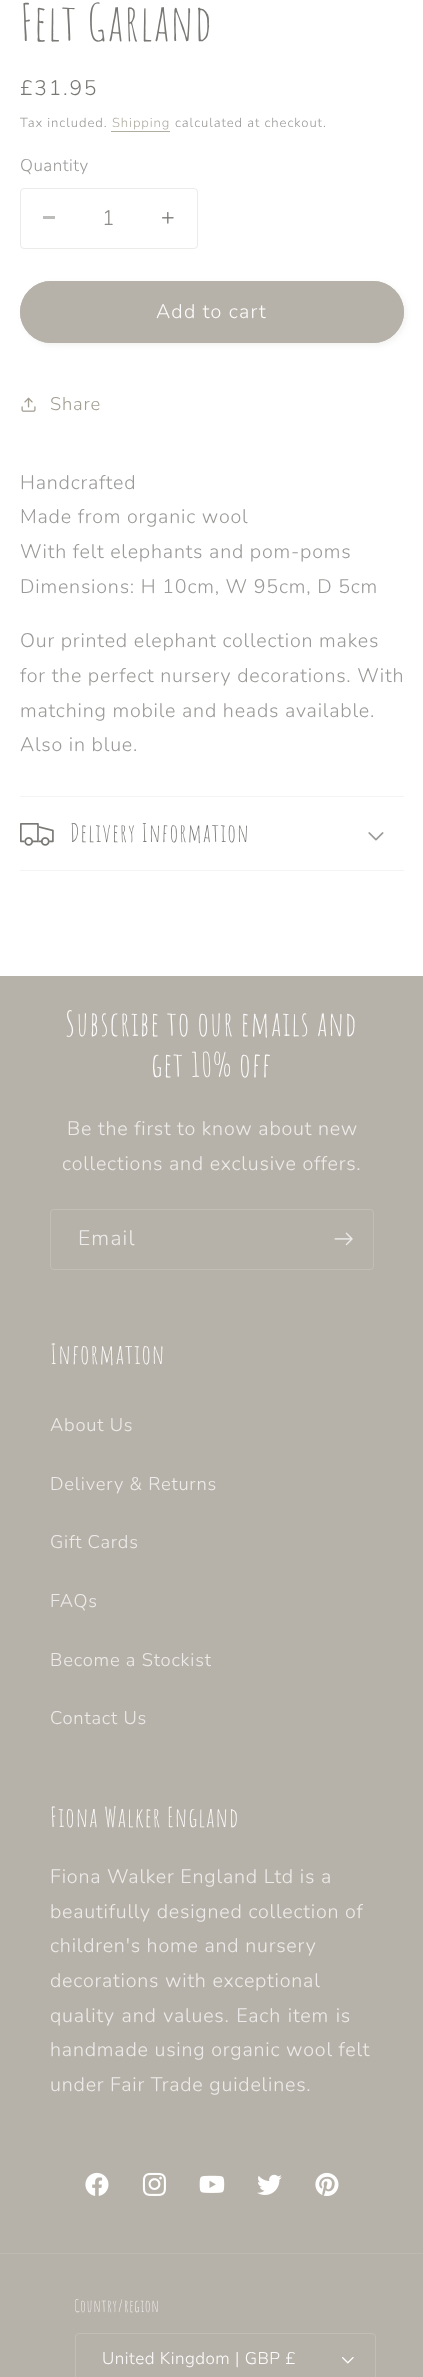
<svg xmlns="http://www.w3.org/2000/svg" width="423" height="2377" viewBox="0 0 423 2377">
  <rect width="100%" height="100%" fill="#fff"/>
  <path d="M111 131h59v1H111z" fill="#b0ada2"/>
  <path d="M43 216h12v3H43z" fill="#bcbcba"/>
  <image x="162" y="212" width="12" height="12" href="img/1.png"/>
  <rect x="20.5" y="188.5" width="177" height="60" rx="3.5" fill="none" stroke="#ebebea"/>
  <rect x="23" y="284" width="383" height="61" rx="30.5" fill="#74726e1a" filter="blur(3px)"/>
  <rect x="20" y="281" width="384" height="62" rx="31" fill="#b7b2a9"/>
  <rect x="20.5" y="281.5" width="383" height="61" rx="30.5" fill="none" stroke="#b7b2a9"/>
  <image x="21" y="397" width="15" height="15" href="img/2.png"/>
  <path d="M20 796h384v1H20z" fill="#f4f4f4"/>
  <path d="M20 870h384v1H20z" fill="#f4f4f4"/>
  <image x="20" y="823" width="34" height="23" href="img/3.png"/>
  <image x="368" y="832" width="16" height="9" href="img/4.png"/>
  <path d="M0 976h423v1401H0z" fill="#b7b2a9"/>
  <rect x="50.5" y="1209.5" width="323" height="60" rx="3.5" fill="none" stroke="#c2beb6"/>
  <image x="334" y="1232" width="19" height="14" href="img/5.png"/>
  <image x="85" y="2172" width="24" height="24" href="img/6.png"/>
  <image x="142" y="2172" width="24" height="24" href="img/7.png"/>
  <image x="199" y="2175" width="26" height="18" href="img/8.png"/>
  <image x="257" y="2174" width="25" height="21" href="img/9.png"/>
  <image x="315" y="2172" width="24" height="24" href="img/10.png"/>
  <path d="M0 2253h423v1H0z" fill="#bdb8b0"/>
  <image x="342" y="2357" width="12" height="7" href="img/11.png"/>
  <rect x="75.5" y="2333.5" width="300" height="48" rx="3.5" fill="none" stroke="#c2beb6"/>
  <text x="20" y="41" font-family="Amatic SC" font-size="50.5" letter-spacing="1" fill="#797875">Felt Garland</text>
  <text x="20" y="95" font-family="Nunito" font-size="21" font-weight="300" letter-spacing="1.75" fill="#797875">£31.95</text>
  <text x="20" y="127" font-family="Nunito" font-size="13.1" font-weight="300" letter-spacing="0.9" fill="#9b9a98">Tax included.</text>
  <text x="112" y="127" font-family="Nunito" font-size="13.1" font-weight="300" letter-spacing="0.9" fill="#b0ada2">Shipping</text>
  <text x="175" y="127" font-family="Nunito" font-size="13.1" font-weight="300" letter-spacing="0.9" fill="#9b9a98">calculated at checkout.</text>
  <text x="20" y="171" font-family="Nunito" font-size="17" font-weight="300" letter-spacing="0.5" fill="#9b9a98">Quantity</text>
  <text x="102" y="225" font-family="Nunito" font-size="21" font-weight="300" fill="#8d8c8a">1</text>
  <text x="156" y="318" font-family="Nunito" font-size="19.7" font-weight="300" letter-spacing="1.25" fill="#fcfcfc">Add to cart</text>
  <text x="50" y="410" font-family="Nunito" font-size="18.4" font-weight="300" letter-spacing="0.8" fill="#a29e92">Share</text>
  <g font-family="Nunito" font-size="19.7" font-weight="300" letter-spacing="0.8" fill="#9b9a98">
    <text x="20" y="489">Handcrafted</text>
    <text x="20" y="523">Made from organic wool</text>
    <text x="20" y="558">With felt elephants and pom-poms</text>
    <text x="20" y="593">Dimensions: H 10cm, W 95cm, D 5cm</text>
    <text x="20" y="647">Our printed elephant collection makes</text>
    <text x="20" y="682">for the perfect nursery decorations. With</text>
    <text x="20" y="717">matching mobile and heads available.</text>
    <text x="20" y="751">Also in blue.</text>
  </g>
  <text x="70" y="842" font-family="Amatic SC" font-size="25.25" letter-spacing="1" fill="#797875">Delivery Information</text>
  <g font-family="Amatic SC" font-size="33.75" letter-spacing="1" fill="#fcfcfc">
    <text x="65" y="1036">Subscribe to our emails and</text>
    <text x="151" y="1077">get 10% off</text>
  </g>
  <g font-family="Nunito" font-size="19.7" font-weight="300" letter-spacing="0.8" fill="#edecea">
    <text x="67" y="1135">Be the first to know about new</text>
    <text x="62" y="1170">collections and exclusive offers.</text>
  </g>
  <text x="78" y="1245" font-family="Nunito" font-size="21" font-weight="300" letter-spacing="1.25" fill="#edecea">Email</text>
  <text x="50" y="1364" font-family="Amatic SC" font-size="27" letter-spacing="1" fill="#fcfcfc">Information</text>
  <g font-family="Nunito" font-size="18.4" font-weight="300" letter-spacing="0.8" fill="#edecea">
    <text x="50" y="1431">About Us</text>
    <text x="50" y="1490">Delivery &amp; Returns</text>
    <text x="50" y="1548">Gift Cards</text>
    <text x="50" y="1607">FAQs</text>
    <text x="50" y="1666">Become a Stockist</text>
    <text x="50" y="1724">Contact Us</text>
  </g>
  <text x="50" y="1827" font-family="Amatic SC" font-size="27" letter-spacing="1" fill="#fcfcfc">Fiona Walker England</text>
  <g font-family="Nunito" font-size="19.7" font-weight="300" letter-spacing="0.8" fill="#edecea">
    <text x="50" y="1883">Fiona Walker England Ltd is a</text>
    <text x="50" y="1918">beautifully designed collection of</text>
    <text x="50" y="1952">children's home and nursery</text>
    <text x="50" y="1987">decorations with exceptional</text>
    <text x="50" y="2022" word-spacing="1">quality and values. Each item is</text>
    <text x="50" y="2056">handmade using organic wool felt</text>
    <text x="50" y="2091">under Fair Trade guidelines.</text>
  </g>
  <text x="74" y="2312" font-family="Amatic SC" font-size="17" letter-spacing="0.5" fill="#edecea">Country/region</text>
  <text x="102" y="2364" font-family="Nunito" font-size="17" font-weight="300" letter-spacing="0.5" fill="#fcfcfc">United Kingdom | GBP £</text>
</svg>
